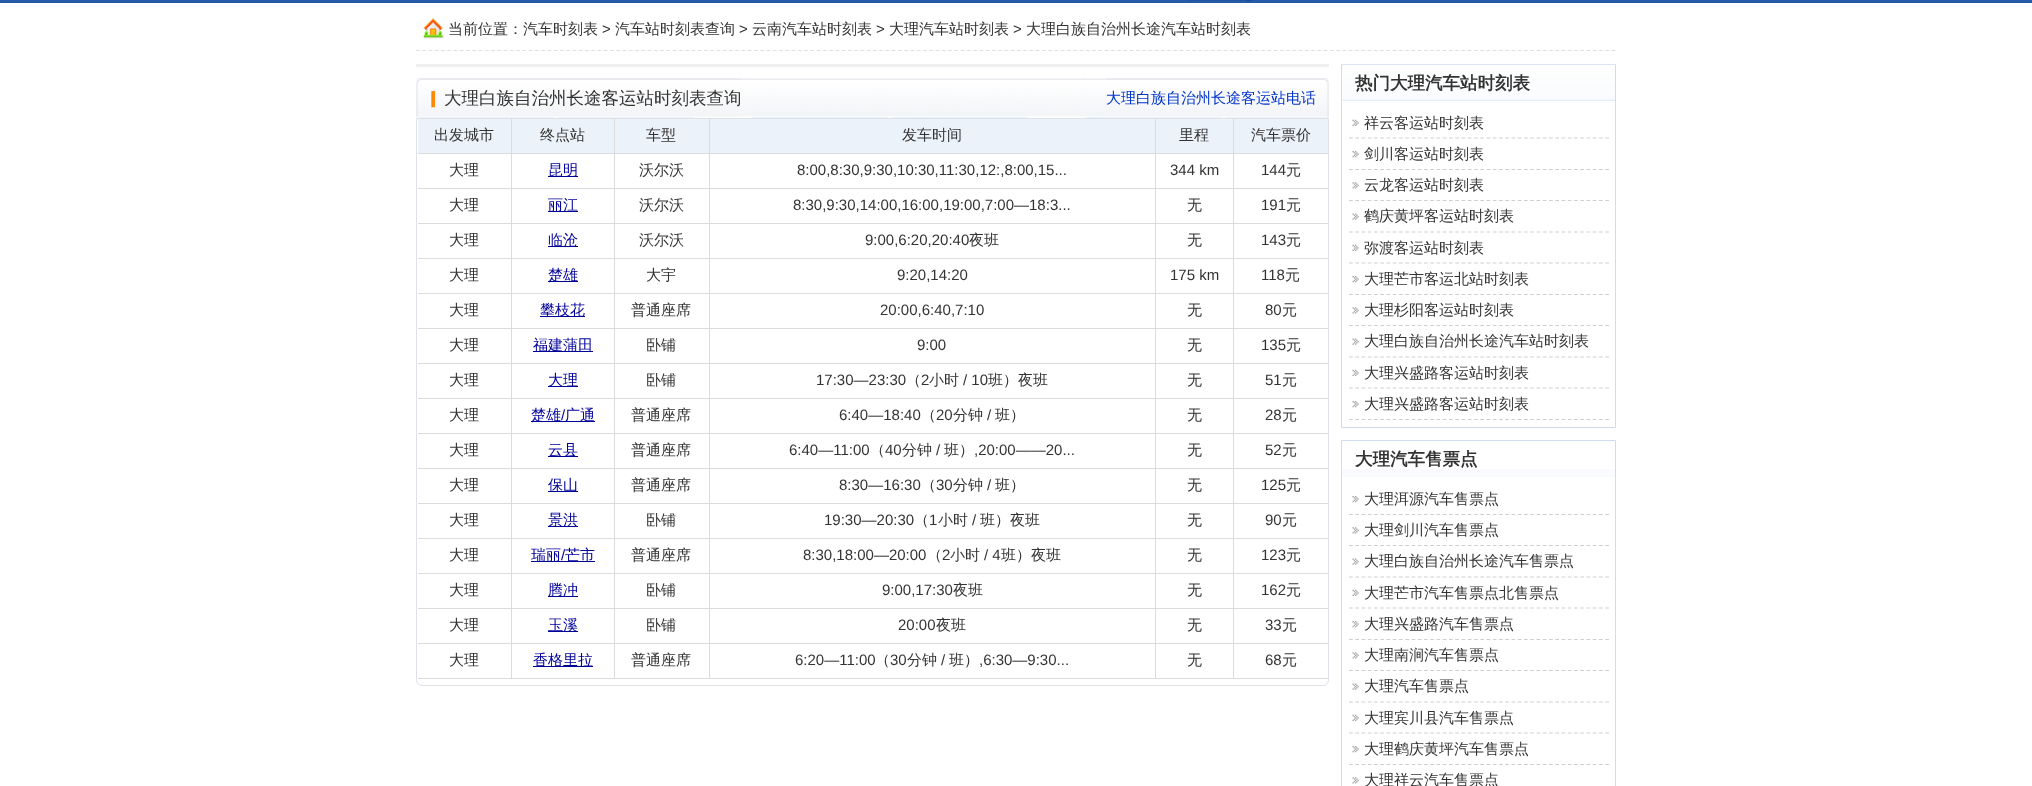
<svg xmlns="http://www.w3.org/2000/svg" width="2032" height="786" viewBox="0 0 2032 786">
  <rect width="100%" height="100%" fill="#fff"/>
  <path d="M0 0h2032v3H0z" fill="#2559aa"/>
  <image x="1188" y="0" width="64" height="2" href="img/1.png"/>
  <path d="M416 50.5H1616" fill="none" stroke="#dfdfdf" stroke-width="1.2" stroke-dasharray="3.75 2.51"/>
  <image x="423" y="18" width="21" height="21" href="img/2.png"/>
  <path d="M416 64h913v3H416z" fill="#efefef"/>
  <image x="416" y="78" width="913" height="40" href="img/3.png"/>
  <image x="416" y="78" width="325" height="40" href="img/4.png"/>
  <image x="1106" y="78" width="223" height="40" href="img/5.png"/>
  <path d="M416.5 118.5H1328.5V680C1328.5 683 1326 685.5 1323 685.5H422C419 685.5 416.5 683 416.5 680Z" fill="none" stroke="#dfe2e8"/>
  <path d="M418 119h910v34H418z" fill="#ecf2fa"/>
  <path d="M511 119h1v560H511z" fill="#dcdcdc"/>
  <path d="M418 153h95v1H418z" fill="#dcdcdc"/>
  <path d="M614 119h1v560H614z" fill="#dcdcdc"/>
  <path d="M513 153h102v1H513z" fill="#dcdcdc"/>
  <path d="M709 119h1v560H709z" fill="#dcdcdc"/>
  <path d="M615 153h95v1H615z" fill="#dcdcdc"/>
  <path d="M1155 119h1v560H1155z" fill="#dcdcdc"/>
  <path d="M710 153h446v1H710z" fill="#dcdcdc"/>
  <path d="M1233 119h1v560H1233z" fill="#dcdcdc"/>
  <path d="M1156 153h172v1H1156z" fill="#dcdcdc"/>
  <path d="M418 188h910v1H418z" fill="#dcdcdc"/>
  <path d="M548 176h30v1H548z" fill="#009"/>
  <path d="M418 223h910v1H418z" fill="#dcdcdc"/>
  <path d="M548 211h30v1H548z" fill="#009"/>
  <path d="M418 258h910v1H418z" fill="#dcdcdc"/>
  <path d="M548 246h30v1H548z" fill="#009"/>
  <path d="M418 293h910v1H418z" fill="#dcdcdc"/>
  <path d="M548 281h30v1H548z" fill="#009"/>
  <path d="M418 328h910v1H418z" fill="#dcdcdc"/>
  <path d="M540 316h45v1H540z" fill="#009"/>
  <path d="M418 363h910v1H418z" fill="#dcdcdc"/>
  <path d="M533 351h60v1H533z" fill="#009"/>
  <path d="M418 398h910v1H418z" fill="#dcdcdc"/>
  <path d="M548 386h30v1H548z" fill="#009"/>
  <path d="M418 433h910v1H418z" fill="#dcdcdc"/>
  <path d="M531 421h64v1H531z" fill="#009"/>
  <path d="M418 468h910v1H418z" fill="#dcdcdc"/>
  <path d="M548 456h30v1H548z" fill="#009"/>
  <path d="M418 503h910v1H418z" fill="#dcdcdc"/>
  <path d="M548 491h30v1H548z" fill="#009"/>
  <path d="M418 538h910v1H418z" fill="#dcdcdc"/>
  <path d="M548 526h30v1H548z" fill="#009"/>
  <path d="M418 573h910v1H418z" fill="#dcdcdc"/>
  <path d="M531 561h64v1H531z" fill="#009"/>
  <path d="M418 608h910v1H418z" fill="#dcdcdc"/>
  <path d="M548 596h30v1H548z" fill="#009"/>
  <path d="M418 643h910v1H418z" fill="#dcdcdc"/>
  <path d="M548 631h30v1H548z" fill="#009"/>
  <path d="M418 678h910v1H418z" fill="#dcdcdc"/>
  <path d="M533 666h60v1H533z" fill="#009"/>
  <path d="M1341.5 64.5h274v363H1341.5z" fill="none" stroke="#cfdcef"/>
  <image x="1342" y="64" width="273" height="37" href="img/6.png"/>
  <image x="1352" y="119" width="7" height="7" href="img/7.png"/>
  <path d="M1349 138H1609" fill="none" stroke="#cfcfcf" stroke-width="1.2" stroke-dasharray="3.75 2.5"/>
  <image x="1352" y="151" width="7" height="7" href="img/8.png"/>
  <path d="M1349 169.5H1609" fill="none" stroke="#cfcfcf" stroke-width="1.2" stroke-dasharray="3.75 2.5"/>
  <image x="1352" y="182" width="7" height="7" href="img/9.png"/>
  <path d="M1349 200.5H1609" fill="none" stroke="#cfcfcf" stroke-width="1.2" stroke-dasharray="3.75 2.5"/>
  <image x="1352" y="213" width="7" height="7" href="img/10.png"/>
  <path d="M1349 232H1609" fill="none" stroke="#cfcfcf" stroke-width="1.2" stroke-dasharray="3.75 2.5"/>
  <image x="1352" y="244" width="7" height="7" href="img/7.png"/>
  <path d="M1349 263H1609" fill="none" stroke="#cfcfcf" stroke-width="1.2" stroke-dasharray="3.75 2.5"/>
  <image x="1352" y="276" width="7" height="7" href="img/8.png"/>
  <path d="M1349 294.5H1609" fill="none" stroke="#cfcfcf" stroke-width="1.2" stroke-dasharray="3.75 2.5"/>
  <image x="1352" y="307" width="7" height="7" href="img/9.png"/>
  <path d="M1349 325.5H1609" fill="none" stroke="#cfcfcf" stroke-width="1.2" stroke-dasharray="3.75 2.5"/>
  <image x="1352" y="338" width="7" height="7" href="img/10.png"/>
  <path d="M1349 357H1609" fill="none" stroke="#cfcfcf" stroke-width="1.2" stroke-dasharray="3.75 2.5"/>
  <image x="1352" y="369" width="7" height="7" href="img/7.png"/>
  <path d="M1349 388H1609" fill="none" stroke="#cfcfcf" stroke-width="1.2" stroke-dasharray="3.75 2.5"/>
  <image x="1352" y="401" width="7" height="7" href="img/8.png"/>
  <path d="M1349 419.5H1609" fill="none" stroke="#cfcfcf" stroke-width="1.2" stroke-dasharray="3.75 2.5"/>
  <path d="M1341.5 440.5h274v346H1341.5z" fill="none" stroke="#cfdcef"/>
  <path d="M1342 469h273v8H1342z" fill="#fafbfe"/>
  <image x="1352" y="496" width="7" height="7" href="img/8.png"/>
  <path d="M1349 514.5H1609" fill="none" stroke="#cfcfcf" stroke-width="1.2" stroke-dasharray="3.75 2.5"/>
  <image x="1352" y="527" width="7" height="7" href="img/9.png"/>
  <path d="M1349 545.5H1609" fill="none" stroke="#cfcfcf" stroke-width="1.2" stroke-dasharray="3.75 2.5"/>
  <image x="1352" y="558" width="7" height="7" href="img/10.png"/>
  <path d="M1349 577H1609" fill="none" stroke="#cfcfcf" stroke-width="1.2" stroke-dasharray="3.75 2.5"/>
  <image x="1352" y="589" width="7" height="7" href="img/7.png"/>
  <path d="M1349 608H1609" fill="none" stroke="#cfcfcf" stroke-width="1.2" stroke-dasharray="3.75 2.5"/>
  <image x="1352" y="621" width="7" height="7" href="img/8.png"/>
  <path d="M1349 639.5H1609" fill="none" stroke="#cfcfcf" stroke-width="1.2" stroke-dasharray="3.75 2.5"/>
  <image x="1352" y="652" width="7" height="7" href="img/9.png"/>
  <path d="M1349 670.5H1609" fill="none" stroke="#cfcfcf" stroke-width="1.2" stroke-dasharray="3.75 2.5"/>
  <image x="1352" y="683" width="7" height="7" href="img/10.png"/>
  <path d="M1349 702H1609" fill="none" stroke="#cfcfcf" stroke-width="1.2" stroke-dasharray="3.75 2.5"/>
  <image x="1352" y="714" width="7" height="7" href="img/7.png"/>
  <path d="M1349 733H1609" fill="none" stroke="#cfcfcf" stroke-width="1.2" stroke-dasharray="3.75 2.5"/>
  <image x="1352" y="746" width="7" height="7" href="img/8.png"/>
  <path d="M1349 764.5H1609" fill="none" stroke="#cfcfcf" stroke-width="1.2" stroke-dasharray="3.75 2.5"/>
  <image x="1352" y="777" width="7" height="7" href="img/9.png"/>
  <text x="448" y="34" font-family="WenQuanYi Zen Hei" font-size="15" font-weight="500" fill="#333">当前位置：汽车时刻表</text>
  <text x="602" y="34" font-family="Liberation Sans" font-size="15" fill="#333">&gt;</text>
  <text x="615" y="34" font-family="WenQuanYi Zen Hei" font-size="15" font-weight="500" fill="#333">汽车站时刻表查询</text>
  <text x="739" y="34" font-family="Liberation Sans" font-size="15" fill="#333">&gt;</text>
  <text x="752" y="34" font-family="WenQuanYi Zen Hei" font-size="15" font-weight="500" fill="#333">云南汽车站时刻表</text>
  <text x="876" y="34" font-family="Liberation Sans" font-size="15" fill="#333">&gt;</text>
  <text x="889" y="34" font-family="WenQuanYi Zen Hei" font-size="15" font-weight="500" fill="#333">大理汽车站时刻表</text>
  <text x="1013" y="34" font-family="Liberation Sans" font-size="15" fill="#333">&gt;</text>
  <text x="1026" y="34" font-family="WenQuanYi Zen Hei" font-size="15" font-weight="500" fill="#333">大理白族自治州长途汽车站时刻表</text>
  <text x="444" y="104" font-family="WenQuanYi Zen Hei" font-size="17.5" font-weight="500" fill="#333">大理白族自治州长途客运站时刻表查询</text>
  <text x="1106" y="103" font-family="WenQuanYi Zen Hei" font-size="15" font-weight="500" fill="#03c">大理白族自治州长途客运站电话</text>
  <g font-family="WenQuanYi Zen Hei" font-size="15" font-weight="500" fill="#333">
    <text x="434" y="140">出发城市</text>
    <text x="540" y="140">终点站</text>
    <text x="646" y="140">车型</text>
    <text x="902" y="140">发车时间</text>
    <text x="1179" y="140">里程</text>
    <text x="1251" y="140">汽车票价</text>
    <text x="449" y="175">大理</text>
  </g>
  <text x="548" y="175" font-family="WenQuanYi Zen Hei" font-size="15" font-weight="500" fill="#009">昆明</text>
  <text x="639" y="175" font-family="WenQuanYi Zen Hei" font-size="15" font-weight="500" fill="#333">沃尔沃</text>
  <g font-family="Liberation Sans" font-size="15" fill="#333">
    <text x="797" y="175">8:00,8:30,9:30,10:30,11:30,12:,8:00,15...</text>
    <text x="1170" y="175">344 km</text>
    <text x="1261" y="175">144</text>
  </g>
  <g font-family="WenQuanYi Zen Hei" font-size="15" font-weight="500" fill="#333">
    <text x="1286" y="175">元</text>
    <text x="449" y="210">大理</text>
  </g>
  <text x="548" y="210" font-family="WenQuanYi Zen Hei" font-size="15" font-weight="500" fill="#009">丽江</text>
  <text x="639" y="210" font-family="WenQuanYi Zen Hei" font-size="15" font-weight="500" fill="#333">沃尔沃</text>
  <text x="793" y="210" font-family="Liberation Sans" font-size="15" fill="#333">8:30,9:30,14:00,16:00,19:00,7:00—18:3...</text>
  <text x="1187" y="210" font-family="WenQuanYi Zen Hei" font-size="15" font-weight="500" fill="#333">无</text>
  <text x="1261" y="210" font-family="Liberation Sans" font-size="15" fill="#333">191</text>
  <g font-family="WenQuanYi Zen Hei" font-size="15" font-weight="500" fill="#333">
    <text x="1286" y="210">元</text>
    <text x="449" y="245">大理</text>
  </g>
  <text x="548" y="245" font-family="WenQuanYi Zen Hei" font-size="15" font-weight="500" fill="#009">临沧</text>
  <text x="639" y="245" font-family="WenQuanYi Zen Hei" font-size="15" font-weight="500" fill="#333">沃尔沃</text>
  <text x="865" y="245" font-family="Liberation Sans" font-size="15" fill="#333">9:00,6:20,20:40</text>
  <g font-family="WenQuanYi Zen Hei" font-size="15" font-weight="500" fill="#333">
    <text x="969" y="245">夜班</text>
    <text x="1187" y="245">无</text>
  </g>
  <text x="1261" y="245" font-family="Liberation Sans" font-size="15" fill="#333">143</text>
  <g font-family="WenQuanYi Zen Hei" font-size="15" font-weight="500" fill="#333">
    <text x="1286" y="245">元</text>
    <text x="449" y="280">大理</text>
  </g>
  <text x="548" y="280" font-family="WenQuanYi Zen Hei" font-size="15" font-weight="500" fill="#009">楚雄</text>
  <text x="646" y="280" font-family="WenQuanYi Zen Hei" font-size="15" font-weight="500" fill="#333">大宇</text>
  <g font-family="Liberation Sans" font-size="15" fill="#333">
    <text x="897" y="280">9:20,14:20</text>
    <text x="1170" y="280">175 km</text>
    <text x="1261" y="280">118</text>
  </g>
  <g font-family="WenQuanYi Zen Hei" font-size="15" font-weight="500" fill="#333">
    <text x="1285" y="280">元</text>
    <text x="449" y="315">大理</text>
  </g>
  <text x="540" y="315" font-family="WenQuanYi Zen Hei" font-size="15" font-weight="500" fill="#009">攀枝花</text>
  <text x="631" y="315" font-family="WenQuanYi Zen Hei" font-size="15" font-weight="500" fill="#333">普通座席</text>
  <text x="880" y="315" font-family="Liberation Sans" font-size="15" fill="#333">20:00,6:40,7:10</text>
  <text x="1187" y="315" font-family="WenQuanYi Zen Hei" font-size="15" font-weight="500" fill="#333">无</text>
  <text x="1265" y="315" font-family="Liberation Sans" font-size="15" fill="#333">80</text>
  <g font-family="WenQuanYi Zen Hei" font-size="15" font-weight="500" fill="#333">
    <text x="1282" y="315">元</text>
    <text x="449" y="350">大理</text>
  </g>
  <text x="533" y="350" font-family="WenQuanYi Zen Hei" font-size="15" font-weight="500" fill="#009">福建蒲田</text>
  <text x="646" y="350" font-family="WenQuanYi Zen Hei" font-size="15" font-weight="500" fill="#333">卧铺</text>
  <text x="917" y="350" font-family="Liberation Sans" font-size="15" fill="#333">9:00</text>
  <text x="1187" y="350" font-family="WenQuanYi Zen Hei" font-size="15" font-weight="500" fill="#333">无</text>
  <text x="1261" y="350" font-family="Liberation Sans" font-size="15" fill="#333">135</text>
  <g font-family="WenQuanYi Zen Hei" font-size="15" font-weight="500" fill="#333">
    <text x="1286" y="350">元</text>
    <text x="449" y="385">大理</text>
  </g>
  <text x="548" y="385" font-family="WenQuanYi Zen Hei" font-size="15" font-weight="500" fill="#009">大理</text>
  <text x="646" y="385" font-family="WenQuanYi Zen Hei" font-size="15" font-weight="500" fill="#333">卧铺</text>
  <text x="816" y="385" font-family="Liberation Sans" font-size="15" fill="#333">17:30—23:30</text>
  <text x="906" y="385" font-family="WenQuanYi Zen Hei" font-size="15" font-weight="500" fill="#333">（</text>
  <text x="921" y="385" font-family="Liberation Sans" font-size="15" fill="#333">2</text>
  <text x="929" y="385" font-family="WenQuanYi Zen Hei" font-size="15" font-weight="500" fill="#333">小时</text>
  <text x="963" y="385" font-family="Liberation Sans" font-size="15" fill="#333">/ 10</text>
  <g font-family="WenQuanYi Zen Hei" font-size="15" font-weight="500" fill="#333">
    <text x="988" y="385">班）夜班</text>
    <text x="1187" y="385">无</text>
  </g>
  <text x="1265" y="385" font-family="Liberation Sans" font-size="15" fill="#333">51</text>
  <g font-family="WenQuanYi Zen Hei" font-size="15" font-weight="500" fill="#333">
    <text x="1282" y="385">元</text>
    <text x="449" y="420">大理</text>
  </g>
  <text x="531" y="420" font-family="WenQuanYi Zen Hei" font-size="15" font-weight="500" fill="#009">楚雄</text>
  <text x="561" y="420" font-family="Liberation Sans" font-size="15" fill="#009">/</text>
  <text x="565" y="420" font-family="WenQuanYi Zen Hei" font-size="15" font-weight="500" fill="#009">广通</text>
  <text x="631" y="420" font-family="WenQuanYi Zen Hei" font-size="15" font-weight="500" fill="#333">普通座席</text>
  <text x="839" y="420" font-family="Liberation Sans" font-size="15" fill="#333">6:40—18:40</text>
  <text x="921" y="420" font-family="WenQuanYi Zen Hei" font-size="15" font-weight="500" fill="#333">（</text>
  <text x="936" y="420" font-family="Liberation Sans" font-size="15" fill="#333">20</text>
  <text x="953" y="420" font-family="WenQuanYi Zen Hei" font-size="15" font-weight="500" fill="#333">分钟</text>
  <text x="987" y="420" font-family="Liberation Sans" font-size="15" fill="#333">/</text>
  <g font-family="WenQuanYi Zen Hei" font-size="15" font-weight="500" fill="#333">
    <text x="995" y="420">班）</text>
    <text x="1187" y="420">无</text>
  </g>
  <text x="1265" y="420" font-family="Liberation Sans" font-size="15" fill="#333">28</text>
  <g font-family="WenQuanYi Zen Hei" font-size="15" font-weight="500" fill="#333">
    <text x="1282" y="420">元</text>
    <text x="449" y="455">大理</text>
  </g>
  <text x="548" y="455" font-family="WenQuanYi Zen Hei" font-size="15" font-weight="500" fill="#009">云县</text>
  <text x="631" y="455" font-family="WenQuanYi Zen Hei" font-size="15" font-weight="500" fill="#333">普通座席</text>
  <text x="789" y="455" font-family="Liberation Sans" font-size="15" fill="#333">6:40—11:00</text>
  <text x="870" y="455" font-family="WenQuanYi Zen Hei" font-size="15" font-weight="500" fill="#333">（</text>
  <text x="885" y="455" font-family="Liberation Sans" font-size="15" fill="#333">40</text>
  <text x="902" y="455" font-family="WenQuanYi Zen Hei" font-size="15" font-weight="500" fill="#333">分钟</text>
  <text x="936" y="455" font-family="Liberation Sans" font-size="15" fill="#333">/</text>
  <text x="944" y="455" font-family="WenQuanYi Zen Hei" font-size="15" font-weight="500" fill="#333">班）</text>
  <text x="974" y="455" font-family="Liberation Sans" font-size="15" fill="#333">,20:00——20...</text>
  <text x="1187" y="455" font-family="WenQuanYi Zen Hei" font-size="15" font-weight="500" fill="#333">无</text>
  <text x="1265" y="455" font-family="Liberation Sans" font-size="15" fill="#333">52</text>
  <g font-family="WenQuanYi Zen Hei" font-size="15" font-weight="500" fill="#333">
    <text x="1282" y="455">元</text>
    <text x="449" y="490">大理</text>
  </g>
  <text x="548" y="490" font-family="WenQuanYi Zen Hei" font-size="15" font-weight="500" fill="#009">保山</text>
  <text x="631" y="490" font-family="WenQuanYi Zen Hei" font-size="15" font-weight="500" fill="#333">普通座席</text>
  <text x="839" y="490" font-family="Liberation Sans" font-size="15" fill="#333">8:30—16:30</text>
  <text x="921" y="490" font-family="WenQuanYi Zen Hei" font-size="15" font-weight="500" fill="#333">（</text>
  <text x="936" y="490" font-family="Liberation Sans" font-size="15" fill="#333">30</text>
  <text x="953" y="490" font-family="WenQuanYi Zen Hei" font-size="15" font-weight="500" fill="#333">分钟</text>
  <text x="987" y="490" font-family="Liberation Sans" font-size="15" fill="#333">/</text>
  <g font-family="WenQuanYi Zen Hei" font-size="15" font-weight="500" fill="#333">
    <text x="995" y="490">班）</text>
    <text x="1187" y="490">无</text>
  </g>
  <text x="1261" y="490" font-family="Liberation Sans" font-size="15" fill="#333">125</text>
  <g font-family="WenQuanYi Zen Hei" font-size="15" font-weight="500" fill="#333">
    <text x="1286" y="490">元</text>
    <text x="449" y="525">大理</text>
  </g>
  <text x="548" y="525" font-family="WenQuanYi Zen Hei" font-size="15" font-weight="500" fill="#009">景洪</text>
  <text x="646" y="525" font-family="WenQuanYi Zen Hei" font-size="15" font-weight="500" fill="#333">卧铺</text>
  <text x="824" y="525" font-family="Liberation Sans" font-size="15" fill="#333">19:30—20:30</text>
  <text x="914" y="525" font-family="WenQuanYi Zen Hei" font-size="15" font-weight="500" fill="#333">（</text>
  <text x="929" y="525" font-family="Liberation Sans" font-size="15" fill="#333">1</text>
  <text x="938" y="525" font-family="WenQuanYi Zen Hei" font-size="15" font-weight="500" fill="#333">小时</text>
  <text x="972" y="525" font-family="Liberation Sans" font-size="15" fill="#333">/</text>
  <g font-family="WenQuanYi Zen Hei" font-size="15" font-weight="500" fill="#333">
    <text x="980" y="525">班）夜班</text>
    <text x="1187" y="525">无</text>
  </g>
  <text x="1265" y="525" font-family="Liberation Sans" font-size="15" fill="#333">90</text>
  <g font-family="WenQuanYi Zen Hei" font-size="15" font-weight="500" fill="#333">
    <text x="1282" y="525">元</text>
    <text x="449" y="560">大理</text>
  </g>
  <text x="531" y="560" font-family="WenQuanYi Zen Hei" font-size="15" font-weight="500" fill="#009">瑞丽</text>
  <text x="561" y="560" font-family="Liberation Sans" font-size="15" fill="#009">/</text>
  <text x="565" y="560" font-family="WenQuanYi Zen Hei" font-size="15" font-weight="500" fill="#009">芒市</text>
  <text x="631" y="560" font-family="WenQuanYi Zen Hei" font-size="15" font-weight="500" fill="#333">普通座席</text>
  <text x="803" y="560" font-family="Liberation Sans" font-size="15" fill="#333">8:30,18:00—20:00</text>
  <text x="927" y="560" font-family="WenQuanYi Zen Hei" font-size="15" font-weight="500" fill="#333">（</text>
  <text x="942" y="560" font-family="Liberation Sans" font-size="15" fill="#333">2</text>
  <text x="950" y="560" font-family="WenQuanYi Zen Hei" font-size="15" font-weight="500" fill="#333">小时</text>
  <text x="984" y="560" font-family="Liberation Sans" font-size="15" fill="#333">/ 4</text>
  <g font-family="WenQuanYi Zen Hei" font-size="15" font-weight="500" fill="#333">
    <text x="1001" y="560">班）夜班</text>
    <text x="1187" y="560">无</text>
  </g>
  <text x="1261" y="560" font-family="Liberation Sans" font-size="15" fill="#333">123</text>
  <g font-family="WenQuanYi Zen Hei" font-size="15" font-weight="500" fill="#333">
    <text x="1286" y="560">元</text>
    <text x="449" y="595">大理</text>
  </g>
  <text x="548" y="595" font-family="WenQuanYi Zen Hei" font-size="15" font-weight="500" fill="#009">腾冲</text>
  <text x="646" y="595" font-family="WenQuanYi Zen Hei" font-size="15" font-weight="500" fill="#333">卧铺</text>
  <text x="882" y="595" font-family="Liberation Sans" font-size="15" fill="#333">9:00,17:30</text>
  <g font-family="WenQuanYi Zen Hei" font-size="15" font-weight="500" fill="#333">
    <text x="953" y="595">夜班</text>
    <text x="1187" y="595">无</text>
  </g>
  <text x="1261" y="595" font-family="Liberation Sans" font-size="15" fill="#333">162</text>
  <g font-family="WenQuanYi Zen Hei" font-size="15" font-weight="500" fill="#333">
    <text x="1286" y="595">元</text>
    <text x="449" y="630">大理</text>
  </g>
  <text x="548" y="630" font-family="WenQuanYi Zen Hei" font-size="15" font-weight="500" fill="#009">玉溪</text>
  <text x="646" y="630" font-family="WenQuanYi Zen Hei" font-size="15" font-weight="500" fill="#333">卧铺</text>
  <text x="898" y="630" font-family="Liberation Sans" font-size="15" fill="#333">20:00</text>
  <g font-family="WenQuanYi Zen Hei" font-size="15" font-weight="500" fill="#333">
    <text x="936" y="630">夜班</text>
    <text x="1187" y="630">无</text>
  </g>
  <text x="1265" y="630" font-family="Liberation Sans" font-size="15" fill="#333">33</text>
  <g font-family="WenQuanYi Zen Hei" font-size="15" font-weight="500" fill="#333">
    <text x="1282" y="630">元</text>
    <text x="449" y="665">大理</text>
  </g>
  <text x="533" y="665" font-family="WenQuanYi Zen Hei" font-size="15" font-weight="500" fill="#009">香格里拉</text>
  <text x="631" y="665" font-family="WenQuanYi Zen Hei" font-size="15" font-weight="500" fill="#333">普通座席</text>
  <text x="795" y="665" font-family="Liberation Sans" font-size="15" fill="#333">6:20—11:00</text>
  <text x="875" y="665" font-family="WenQuanYi Zen Hei" font-size="15" font-weight="500" fill="#333">（</text>
  <text x="890" y="665" font-family="Liberation Sans" font-size="15" fill="#333">30</text>
  <text x="907" y="665" font-family="WenQuanYi Zen Hei" font-size="15" font-weight="500" fill="#333">分钟</text>
  <text x="941" y="665" font-family="Liberation Sans" font-size="15" fill="#333">/</text>
  <text x="949" y="665" font-family="WenQuanYi Zen Hei" font-size="15" font-weight="500" fill="#333">班）</text>
  <text x="979" y="665" font-family="Liberation Sans" font-size="15" fill="#333">,6:30—9:30...</text>
  <text x="1187" y="665" font-family="WenQuanYi Zen Hei" font-size="15" font-weight="500" fill="#333">无</text>
  <text x="1265" y="665" font-family="Liberation Sans" font-size="15" fill="#333">68</text>
  <text x="1282" y="665" font-family="WenQuanYi Zen Hei" font-size="15" font-weight="500" fill="#333">元</text>
  <text x="1355" y="89" font-family="WenQuanYi Zen Hei" font-size="17.5" font-weight="bold" fill="#333">热门大理汽车站时刻表</text>
  <g font-family="WenQuanYi Zen Hei" font-size="15" font-weight="500" fill="#333">
    <text x="1364" y="128">祥云客运站时刻表</text>
    <text x="1364" y="159">剑川客运站时刻表</text>
    <text x="1364" y="190">云龙客运站时刻表</text>
    <text x="1364" y="221">鹤庆黄坪客运站时刻表</text>
    <text x="1364" y="253">弥渡客运站时刻表</text>
    <text x="1364" y="284">大理芒市客运北站时刻表</text>
    <text x="1364" y="315">大理杉阳客运站时刻表</text>
    <text x="1364" y="346">大理白族自治州长途汽车站时刻表</text>
    <text x="1364" y="378">大理兴盛路客运站时刻表</text>
    <text x="1364" y="409">大理兴盛路客运站时刻表</text>
  </g>
  <text x="1355" y="465" font-family="WenQuanYi Zen Hei" font-size="17.5" font-weight="bold" fill="#333">大理汽车售票点</text>
  <g font-family="WenQuanYi Zen Hei" font-size="15" font-weight="500" fill="#333">
    <text x="1364" y="504">大理洱源汽车售票点</text>
    <text x="1364" y="535">大理剑川汽车售票点</text>
    <text x="1364" y="566">大理白族自治州长途汽车售票点</text>
    <text x="1364" y="598">大理芒市汽车售票点北售票点</text>
    <text x="1364" y="629">大理兴盛路汽车售票点</text>
    <text x="1364" y="660">大理南涧汽车售票点</text>
    <text x="1364" y="691">大理汽车售票点</text>
    <text x="1364" y="723">大理宾川县汽车售票点</text>
    <text x="1364" y="754">大理鹤庆黄坪汽车售票点</text>
    <text x="1364" y="785">大理祥云汽车售票点</text>
  </g>
</svg>
